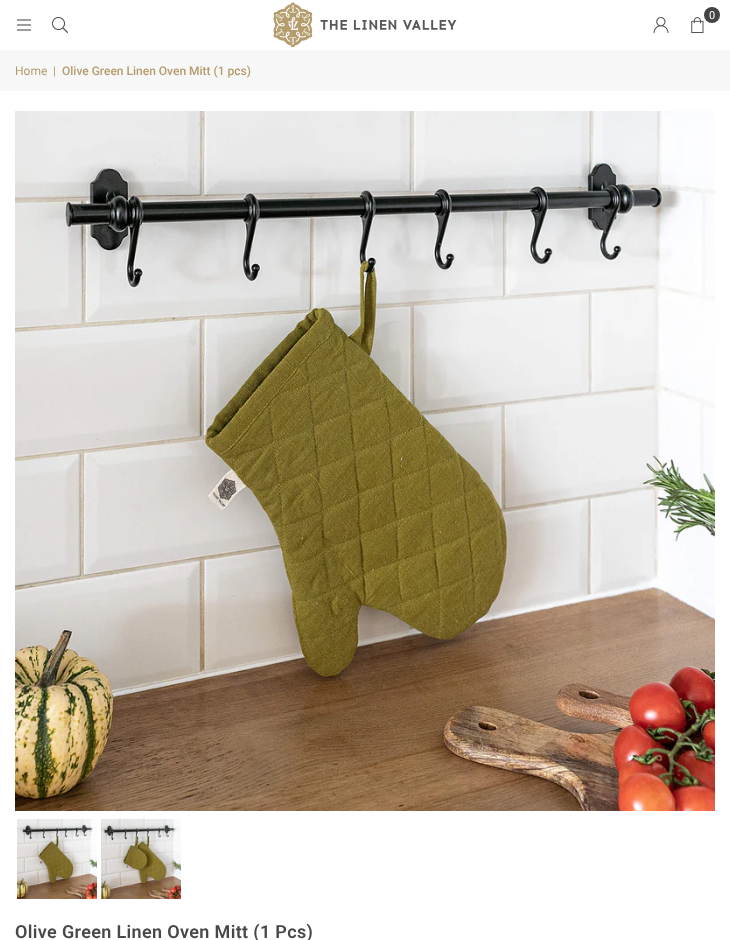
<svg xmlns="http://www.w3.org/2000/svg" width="730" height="940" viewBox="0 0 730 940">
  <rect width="100%" height="100%" fill="#fff"/>
  <image x="273" y="2" width="184" height="46" href="img/1.png"/>
  <circle cx="712" cy="15" r="8" fill="#444"/>
  <image x="691" y="17" width="13" height="16" href="img/2.png"/>
  <image x="653" y="17" width="16" height="16" href="img/3.png"/>
  <image x="17" y="19" width="14" height="12" href="img/4.png"/>
  <image x="52" y="17" width="16" height="16" href="img/5.png"/>
  <path d="M0 50h730v41H0z" fill="#f7f7f7"/>
  <image x="15" y="111" width="700" height="700" href="img/6.png"/>
  <image x="17" y="819" width="80" height="80" href="img/7.png"/>
  <image x="101" y="819" width="80" height="80" href="img/8.png"/>
  <text x="709" y="19" font-family="Roboto" font-size="11" fill="#fff">0</text>
  <g font-family="Roboto" font-size="12" fill="#b49c6d">
    <text x="15" y="75">Home</text>
    <text x="53" y="75">|</text>
  </g>
  <text x="62" y="75" font-family="Roboto" font-size="12" font-weight="500" fill="#b49c6d">Olive Green Linen Oven Mitt (1 pcs)</text>
  <text x="15" y="938" font-family="Roboto" font-size="18" font-weight="600" letter-spacing="0.35" fill="#484848">Olive Green Linen Oven Mitt (1 Pcs)</text>
</svg>
